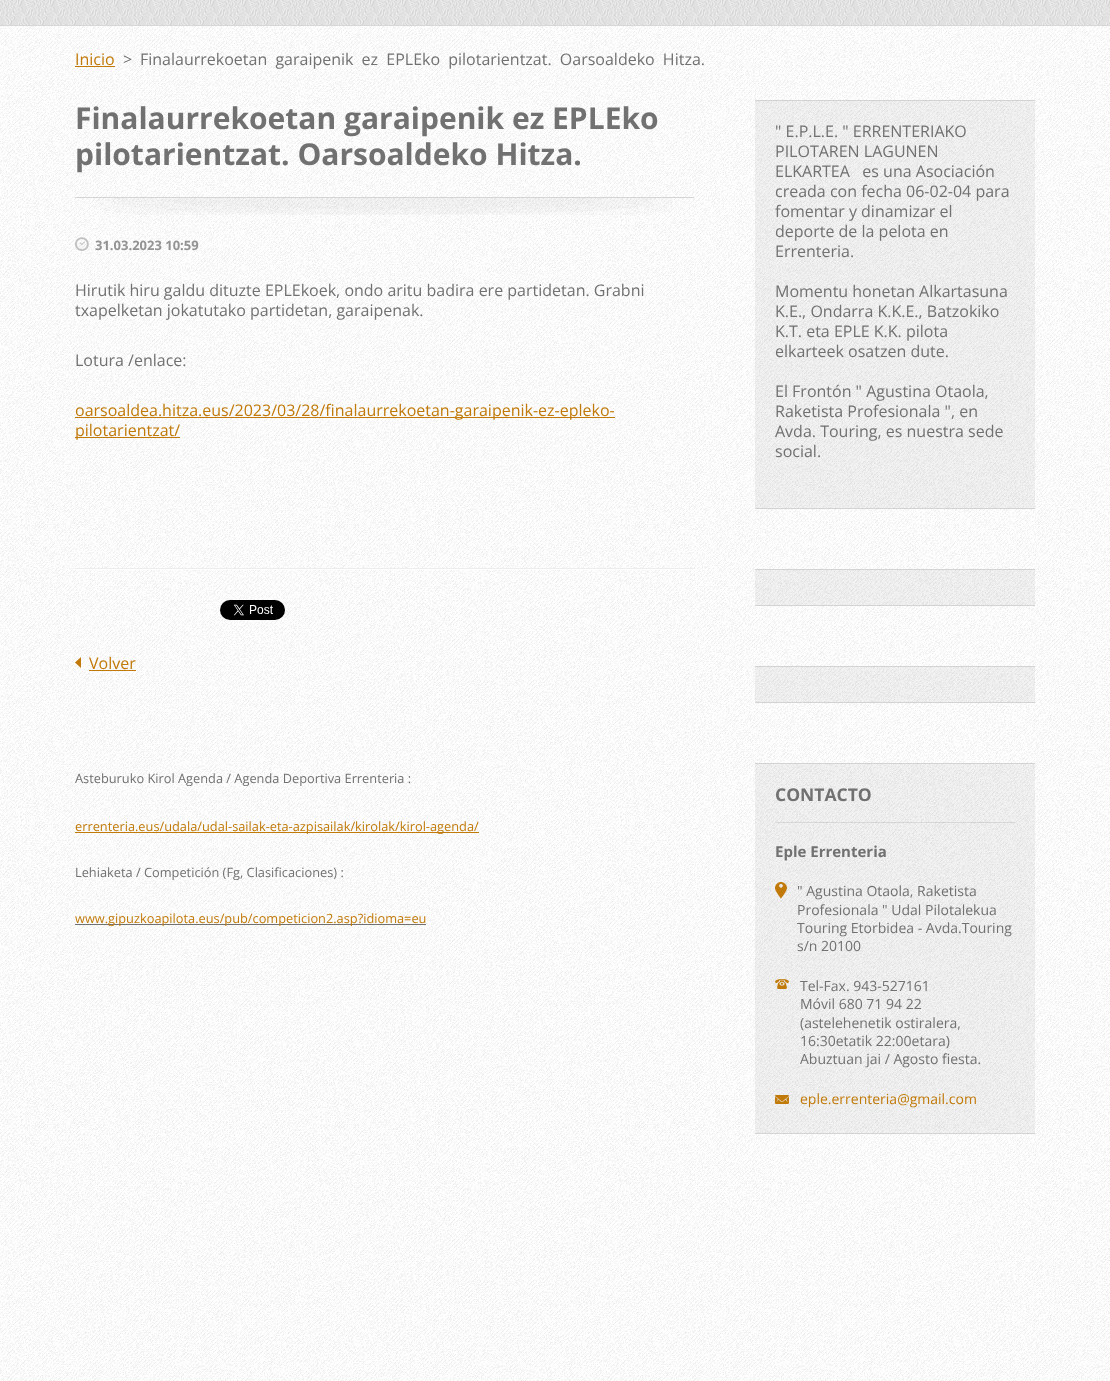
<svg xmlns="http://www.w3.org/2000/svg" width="1110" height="1381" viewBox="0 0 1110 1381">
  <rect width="100%" height="100%" fill="#fff"/>
  <image x="0" y="26" width="1110" height="1355" href="img/1.png"/>
  <image x="0" y="0" width="1110" height="25" href="img/2.png"/>
  <path d="M0 25h1110v1H0z" fill="#d7d7d7"/>
  <path d="M75 66h40v1H75z" fill="#c17a0a"/>
  <image x="75" y="197" width="619" height="18" href="img/3.png"/>
  <image x="75" y="237" width="14" height="14" href="img/4.png"/>
  <image x="75" y="568" width="620" height="2" href="img/5.png"/>
  <path d="M75 417h540v1H75z" fill="#c17a0a"/>
  <path d="M75 437h105v1H75z" fill="#c17a0a"/>
  <image x="220" y="600" width="65" height="20" href="img/6.png"/>
  <image x="75" y="657" width="6" height="11" href="img/7.png"/>
  <path d="M89 670h47v1H89z" fill="#c17a0a"/>
  <path d="M75 832h404v1H75z" fill="#c17a0a"/>
  <path d="M75 924h351v1H75z" fill="#717171"/>
  <path d="M755 101h280v407H755z" fill="#0000000d"/>
  <path d="M755 100h280v1H755z" fill="#d3d3d3"/>
  <path d="M755 508h280v1H755z" fill="#d3d3d3"/>
  <path d="M755 570h280v35H755z" fill="#0000000d"/>
  <path d="M755 569h280v1H755z" fill="#d3d3d3"/>
  <path d="M755 605h280v1H755z" fill="#d3d3d3"/>
  <path d="M755 667h280v35H755z" fill="#0000000d"/>
  <path d="M755 666h280v1H755z" fill="#d3d3d3"/>
  <path d="M755 702h280v1H755z" fill="#d3d3d3"/>
  <path d="M755 764h280v369H755z" fill="#0000000d"/>
  <path d="M755 763h280v1H755z" fill="#d3d3d3"/>
  <path d="M755 1133h280v1H755z" fill="#d3d3d3"/>
  <image x="775" y="822" width="240" height="1" href="img/8.png"/>
  <image x="775" y="882" width="12" height="17" href="img/9.png"/>
  <image x="775" y="979" width="14" height="10" href="img/10.png"/>
  <image x="775" y="1095" width="14" height="9" href="img/11.png"/>
  <text x="75" y="65" font-family="Open Sans" font-size="16" fill="#c17a0a">Inicio</text>
  <g font-family="Open Sans" font-size="16" fill="#717171">
    <text x="123" y="65">&gt;</text>
    <text x="140" y="65" word-spacing="4">Finalaurrekoetan garaipenik ez EPLEko pilotarientzat. Oarsoaldeko Hitza.</text>
  </g>
  <g font-family="Open Sans" font-size="30" font-weight="bold" fill="#717171">
    <text x="75" y="129">Finalaurrekoetan garaipenik ez EPLEko</text>
    <text x="75" y="165">pilotarientzat. Oarsoaldeko Hitza.</text>
  </g>
  <text x="95" y="250" font-family="Open Sans" font-size="13" font-weight="bold" fill="#939393">31.03.2023 10:59</text>
  <g font-family="Open Sans" font-size="16" fill="#717171">
    <text x="75" y="296">Hirutik hiru galdu dituzte EPLEkoek, ondo aritu badira ere partidetan. Grabni</text>
    <text x="75" y="316">txapelketan jokatutako partidetan, garaipenak.</text>
    <text x="75" y="366">Lotura /enlace:</text>
  </g>
  <g font-family="Open Sans" font-size="16" fill="#c17a0a">
    <text x="75" y="416">oarsoaldea.hitza.eus/2023/03/28/finalaurrekoetan-garaipenik-ez-epleko-</text>
    <text x="75" y="436">pilotarientzat/</text>
    <text x="89" y="669">Volver</text>
  </g>
  <text x="75" y="783" font-family="Open Sans" font-size="12.8" fill="#717171">Asteburuko Kirol Agenda / Agenda Deportiva Errenteria :</text>
  <text x="75" y="831" font-family="Open Sans" font-size="12.8" fill="#c17a0a">errenteria.eus/udala/udal-sailak-eta-azpisailak/kirolak/kirol-agenda/</text>
  <text x="75" y="877" font-family="Open Sans" font-size="12.8" fill="#717171">Lehiaketa / Competición (Fg, Clasificaciones) :</text>
  <text x="75" y="923" font-family="Open Sans" font-size="12.8" fill="#c17a0a">www.gipuzkoapilota.eus/pub/competicion2.asp?idioma=eu</text>
  <g font-family="Open Sans" font-size="16" fill="#717171">
    <text x="775" y="137">" E.P.L.E. " ERRENTERIAKO</text>
    <text x="775" y="157">PILOTAREN LAGUNEN</text>
    <text x="775" y="177" xml:space="preserve">ELKARTEA   es una Asociación</text>
    <text x="775" y="197">creada con fecha 06-02-04 para</text>
    <text x="775" y="217">fomentar y dinamizar el</text>
    <text x="775" y="237">deporte de la pelota en</text>
    <text x="775" y="257">Errenteria.</text>
    <text x="775" y="297">Momentu honetan Alkartasuna</text>
    <text x="775" y="317">K.E., Ondarra K.K.E., Batzokiko</text>
    <text x="775" y="337">K.T. eta EPLE K.K. pilota</text>
    <text x="775" y="357">elkarteek osatzen dute.</text>
    <text x="775" y="397">El Frontón " Agustina Otaola,</text>
    <text x="775" y="417">Raketista Profesionala ", en</text>
    <text x="775" y="437">Avda. Touring, es nuestra sede</text>
    <text x="775" y="457">social.</text>
  </g>
  <text x="775" y="801" font-family="Open Sans" font-size="17.5" font-weight="bold" fill="#717171">CONTACTO</text>
  <text x="775" y="857" font-family="Open Sans" font-size="15" font-weight="bold" fill="#717171">Eple Errenteria</text>
  <g font-family="Open Sans" font-size="14" fill="#717171">
    <text x="797" y="896">" Agustina Otaola, Raketista</text>
    <text x="797" y="915">Profesionala " Udal Pilotalekua</text>
    <text x="797" y="933">Touring Etorbidea - Avda.Touring</text>
    <text x="797" y="951">s/n 20100</text>
    <text x="800" y="991">Tel-Fax. 943-527161</text>
    <text x="800" y="1009">Móvil 680 71 94 22</text>
    <text x="800" y="1028">(astelehenetik ostiralera,</text>
    <text x="800" y="1046">16:30etatik 22:00etara)</text>
    <text x="800" y="1064">Abuztuan jai / Agosto fiesta.</text>
  </g>
  <text x="800" y="1104" font-family="Open Sans" font-size="14" fill="#c17a0a">eple.errenteria@gmail.com</text>
</svg>
